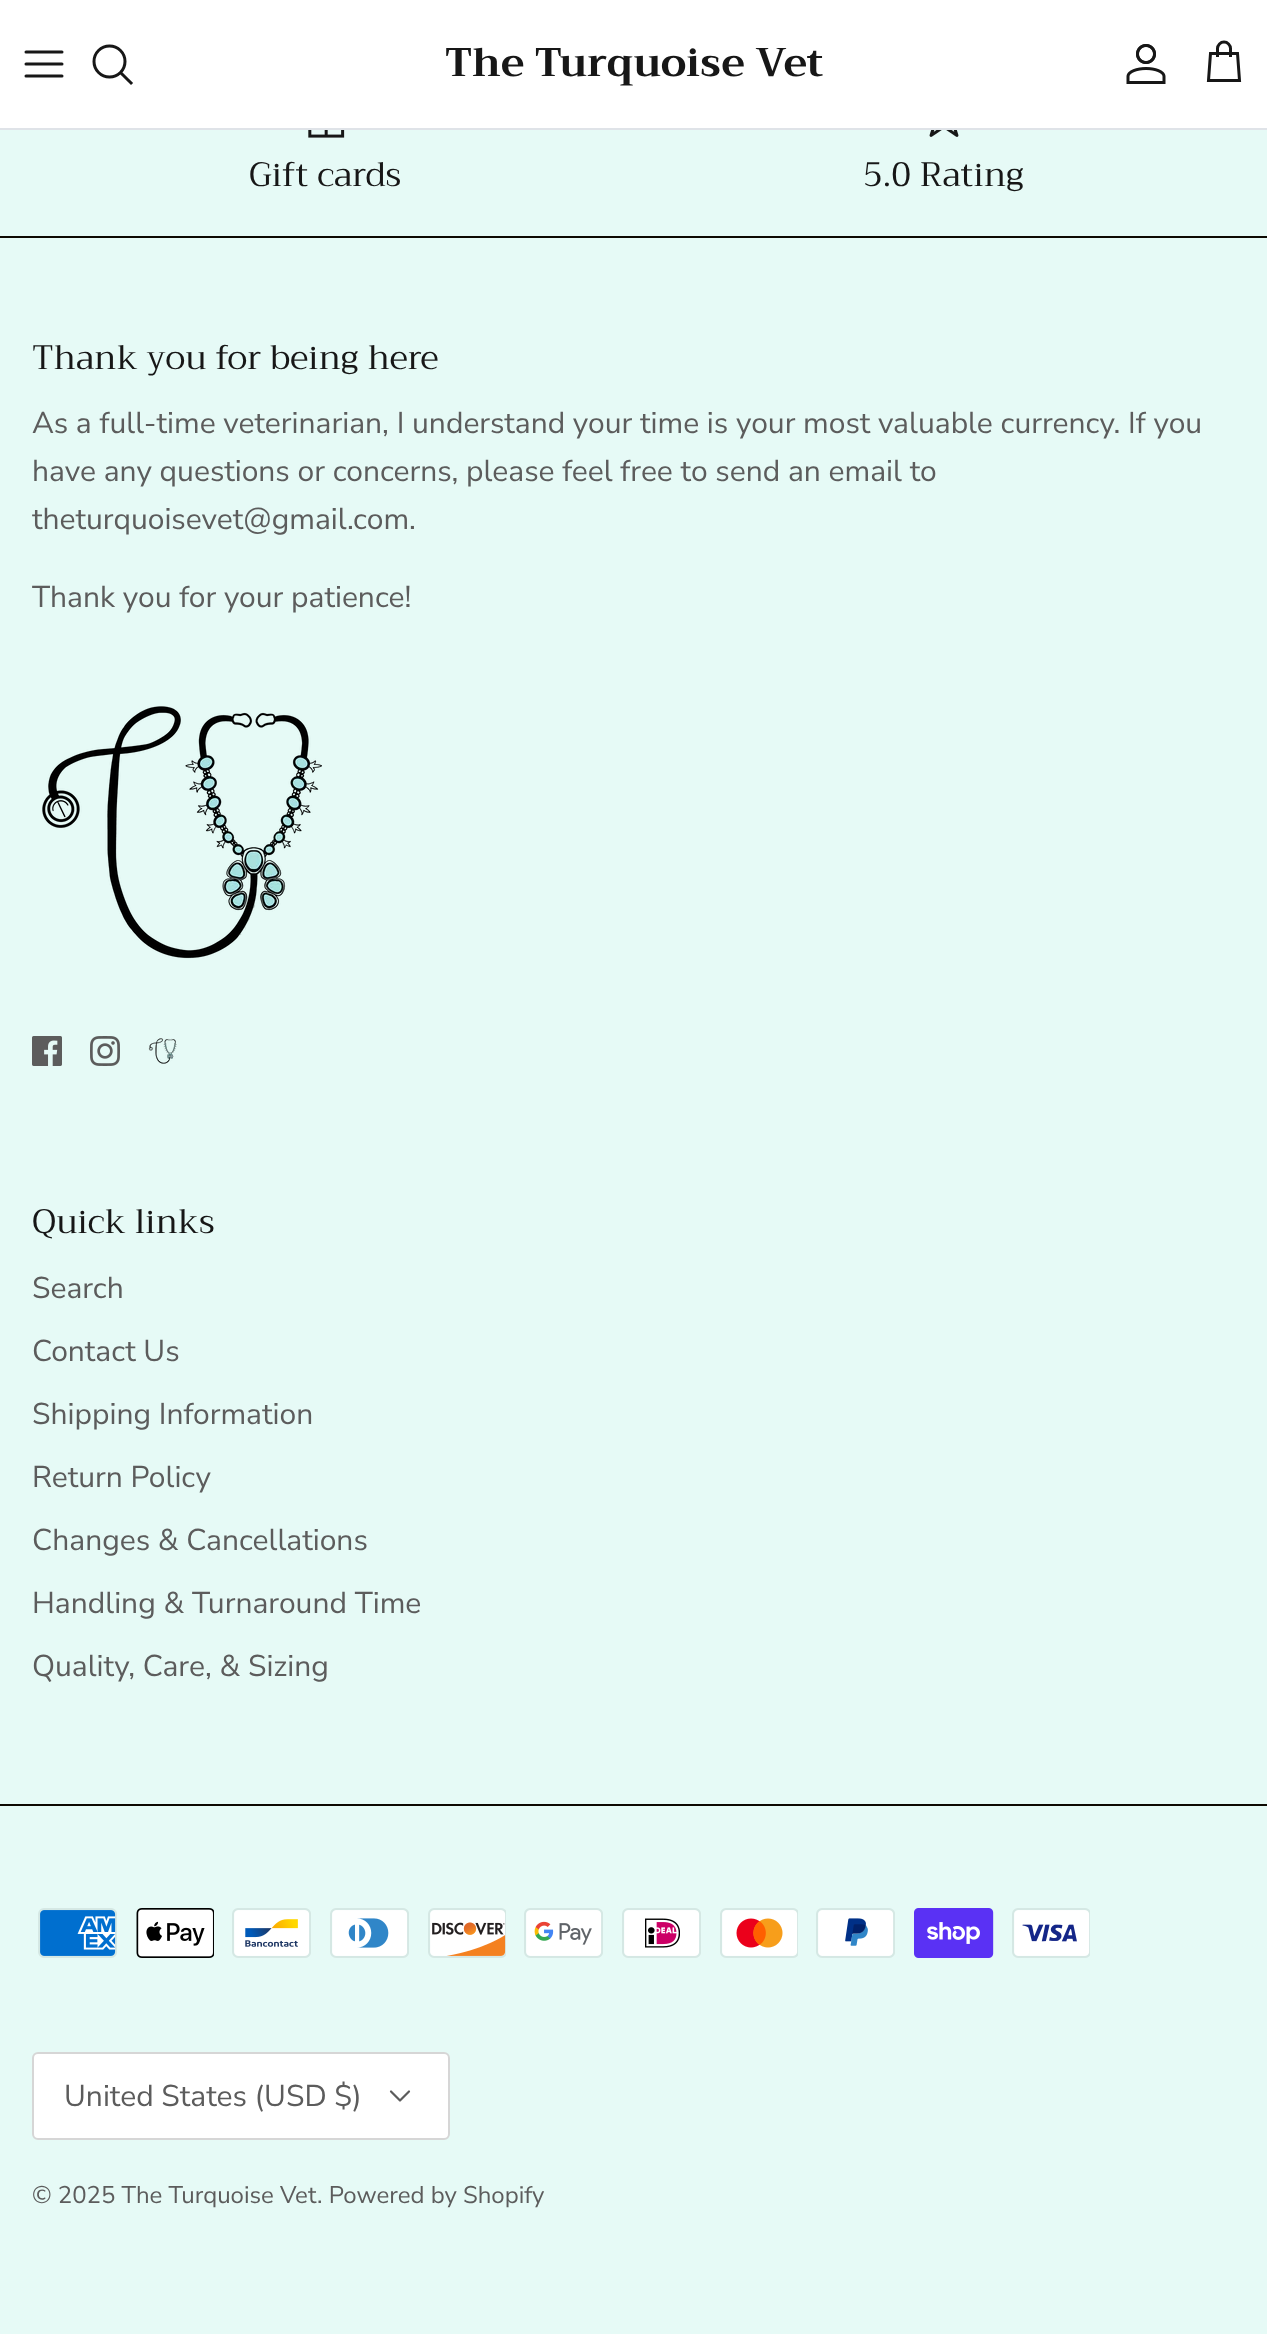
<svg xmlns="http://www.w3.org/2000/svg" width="1267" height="2334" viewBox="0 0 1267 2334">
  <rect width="100%" height="100%" fill="#e6faf6"/>
  <path d="M0 0h1267v128H0z" fill="#fff"/>
  <path d="M0 128h1267v2H0z" fill="#dfe3e8"/>
  <path d="M26 64H62M26 52H62M26 76H62" fill="none" stroke="#171717" stroke-width="3" stroke-linecap="round" stroke-linejoin="round"/>
  <circle cx="109.5" cy="61.5" r="15.5" fill="none" stroke="#171717" stroke-width="3"/>
  <path d="M122 74L131 83" fill="none" stroke="#171717" stroke-width="3" stroke-linecap="square"/>
  <image x="1126" y="44" width="40" height="40" href="img/1.png"/>
  <path d="M1230.5 57V48.5C1230.5 45 1227.5 42 1224 42C1220.5 42 1217.5 45 1217.5 48.5V57M1210.5 53.5H1237.5L1239.5 80.5H1208.5Z" fill="none" stroke="#171717" stroke-width="3"/>
  <image x="308" y="130" width="37" height="8" href="img/2.png"/>
  <image x="929" y="130" width="30" height="7" href="img/3.png"/>
  <path d="M0 236h1267v2H0z" fill="#0d0902"/>
  <image x="42" y="706" width="280" height="253" href="img/4.png"/>
  <image x="32" y="1036" width="30" height="30" href="img/5.png"/>
  <image x="90" y="1036" width="30" height="30" href="img/6.png"/>
  <image x="148" y="1038" width="29" height="26" href="img/7.png"/>
  <path d="M0 1804h1267v2H0z" fill="#0d0902"/>
  <image x="38" y="1908" width="79" height="50" href="img/8.png"/>
  <image x="136" y="1908" width="78" height="50" href="img/9.png"/>
  <image x="232" y="1908" width="79" height="50" href="img/10.png"/>
  <image x="330" y="1908" width="79" height="50" href="img/11.png"/>
  <image x="428" y="1908" width="78" height="50" href="img/12.png"/>
  <image x="524" y="1908" width="79" height="50" href="img/13.png"/>
  <image x="622" y="1908" width="79" height="50" href="img/14.png"/>
  <image x="720" y="1908" width="78" height="50" href="img/15.png"/>
  <image x="816" y="1908" width="79" height="50" href="img/16.png"/>
  <image x="914" y="1908" width="80" height="50" href="img/17.png"/>
  <image x="1012" y="1908" width="78" height="50" href="img/18.png"/>
  <rect x="33" y="2053" width="416" height="86" rx="5" fill="#fff" stroke="#d6d6d6" stroke-width="2"/>
  <path d="M391 2091.5L400 2100.5L409 2091.5" fill="none" stroke="#5c5c5c" stroke-width="2.2" stroke-linecap="round" stroke-linejoin="round"/>
  <text x="445" y="76" font-family="Trirong" font-size="40" font-weight="bold" fill="#171717">The Turquoise Vet</text>
  <g font-family="Trirong" font-size="33.8" fill="#171717">
    <text x="249" y="186">Gift cards</text>
    <text x="863" y="186">5.0 Rating</text>
    <text x="32" y="369">Thank you for being here</text>
  </g>
  <g font-family="Nunito Sans" font-size="30" fill="#5c5c5c">
    <text x="32" y="433">As a full-time veterinarian, I understand your time is your most valuable currency. If you</text>
    <text x="32" y="481">have any questions or concerns, please feel free to send an email to</text>
    <text x="32" y="529">theturquoisevet@gmail.com.</text>
    <text x="32" y="607">Thank you for your patience!</text>
  </g>
  <text x="32" y="1233" font-family="Trirong" font-size="33.8" fill="#171717">Quick links</text>
  <g font-family="Nunito Sans" font-size="30" fill="#5c5c5c">
    <text x="32" y="1298">Search</text>
    <text x="32" y="1361">Contact Us</text>
    <text x="32" y="1424">Shipping Information</text>
    <text x="32" y="1487">Return Policy</text>
    <text x="32" y="1550">Changes &amp; Cancellations</text>
    <text x="32" y="1613">Handling &amp; Turnaround Time</text>
    <text x="32" y="1676">Quality, Care, &amp; Sizing</text>
    <text x="64" y="2106">United States (USD $)</text>
  </g>
  <g font-family="Nunito Sans" font-size="24" fill="#5c5c5c">
    <text x="32" y="2203">© 2025 The Turquoise Vet</text>
    <text x="317" y="2203">. Powered by Shopify</text>
  </g>
</svg>
